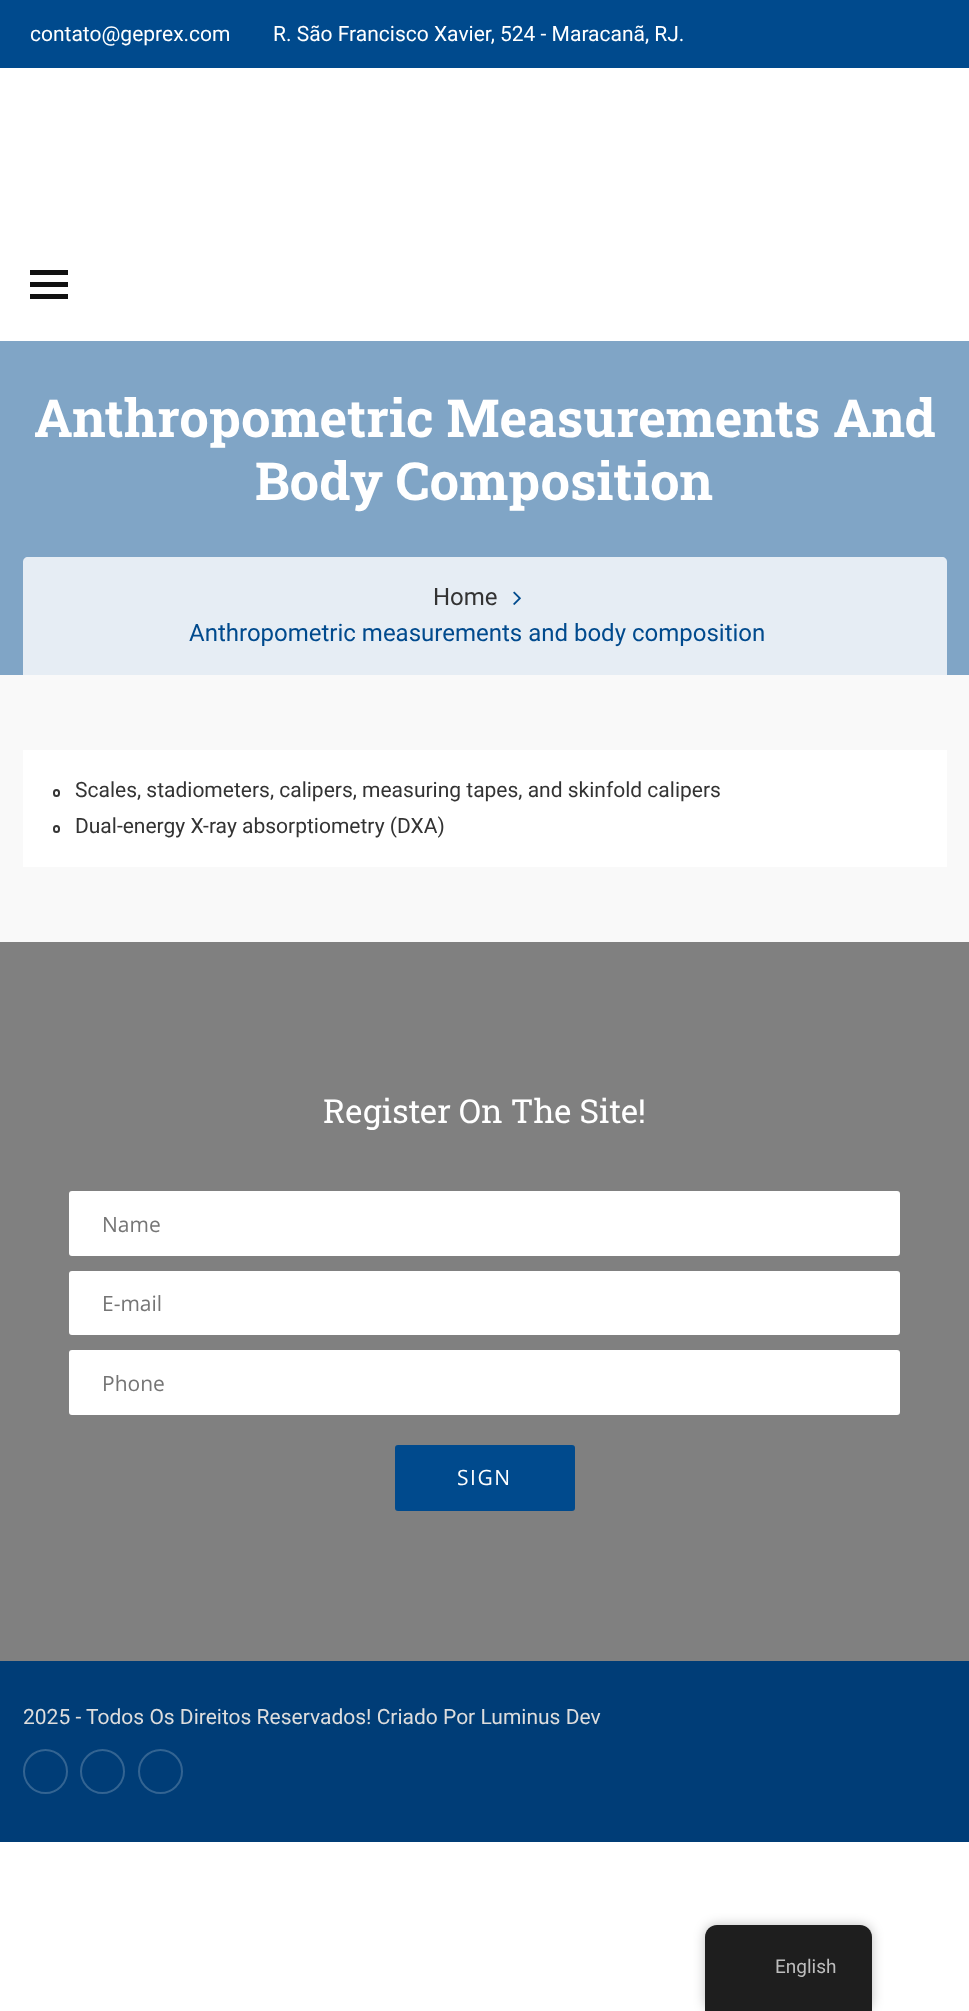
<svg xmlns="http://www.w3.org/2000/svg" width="969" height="2011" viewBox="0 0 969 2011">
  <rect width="100%" height="100%" fill="#fff"/>
  <path d="M0 0h969v68H0z" fill="#004a8d"/>
  <path d="M30 270h38v5H30z" fill="#111"/>
  <path d="M30 282h38v5H30z" fill="#111"/>
  <path d="M30 294h38v5H30z" fill="#111"/>
  <path d="M0 341h969v334H0z" fill="#80a5c6"/>
  <path d="M28 557H942C945 557 947 559 947 562V675H23V562C23 559 25 557 28 557Z" fill="#e6edf4"/>
  <image x="513" y="591" width="8" height="14" href="img/1.png"/>
  <path d="M0 675h969v267H0z" fill="#f9f9f9"/>
  <path d="M23 750h924v117H23z" fill="#fff"/>
  <rect x="54" y="790" width="5" height="6" rx="2.5" fill="none" stroke="#353535" stroke-width="2"/>
  <rect x="54" y="826" width="5" height="6" rx="2.5" fill="none" stroke="#353535" stroke-width="2"/>
  <path d="M0 942h969v719H0z" fill="#808080"/>
  <rect x="70.5" y="1192.5" width="828" height="62" rx="1.5" fill="#fff" stroke="#fff" stroke-width="3"/>
  <rect x="70.5" y="1272.5" width="828" height="61" rx="1.5" fill="#fff" stroke="#fff" stroke-width="3"/>
  <rect x="70.5" y="1351.5" width="828" height="62" rx="1.5" fill="#fff" stroke="#fff" stroke-width="3"/>
  <rect x="395" y="1445" width="180" height="66" rx="3" fill="#004a8d"/>
  <path d="M0 1661h969v181H0z" fill="#003d77"/>
  <circle cx="45.5" cy="1771.5" r="21.5" fill="none" stroke="#336492" stroke-width="2"/>
  <circle cx="102.5" cy="1771.5" r="21.5" fill="none" stroke="#336492" stroke-width="2"/>
  <circle cx="160.5" cy="1771.5" r="21.5" fill="none" stroke="#336492" stroke-width="2"/>
  <rect x="705" y="1925" width="167" height="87" rx="12" fill="#00000040" filter="blur(6px)"/>
  <path d="M717 1925H860C866.5 1925 872 1930.5 872 1937V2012H705V1937C705 1930.5 710.5 1925 717 1925Z" fill="#1e1e1e"/>
  <g font-family="Roboto" font-size="21" fill="#fff">
    <text x="30" y="41">contato@geprex.com</text>
    <text x="273" y="41">R. São Francisco Xavier, 524 - Maracanã, RJ.</text>
  </g>
  <g font-family="Roboto Slab" font-size="52.5" font-weight="bold" fill="#fff">
    <text x="34" y="437">Anthropometric Measurements And</text>
    <text x="255" y="500">Body Composition</text>
  </g>
  <text x="433" y="605" font-family="Roboto" font-size="24" fill="#333">Home</text>
  <text x="189" y="641" font-family="Roboto" font-size="24" fill="#004a8d">Anthropometric measurements and body composition</text>
  <g font-family="Roboto" font-size="21" fill="#333">
    <text x="75" y="797">Scales, stadiometers, calipers, measuring tapes, and skinfold calipers</text>
    <text x="75" y="833">Dual-energy X-ray absorptiometry (DXA)</text>
  </g>
  <text x="323" y="1123" font-family="Roboto Slab" font-size="33" fill="#fff">Register On The Site!</text>
  <g font-family="Open Sans" font-size="21" fill="#757575">
    <text x="102" y="1232">Name</text>
    <text x="102" y="1311">E-mail</text>
    <text x="102" y="1391">Phone</text>
  </g>
  <text x="457" y="1485" font-family="Open Sans" font-size="21" letter-spacing="1.5" fill="#fff">SIGN</text>
  <text x="23" y="1724" font-family="Roboto" font-size="21" fill="#ddd">2025 - Todos Os Direitos Reservados! Criado Por Luminus Dev</text>
  <text x="775" y="1973" font-family="Roboto" font-size="19" fill="#bdbdbd">English</text>
</svg>
